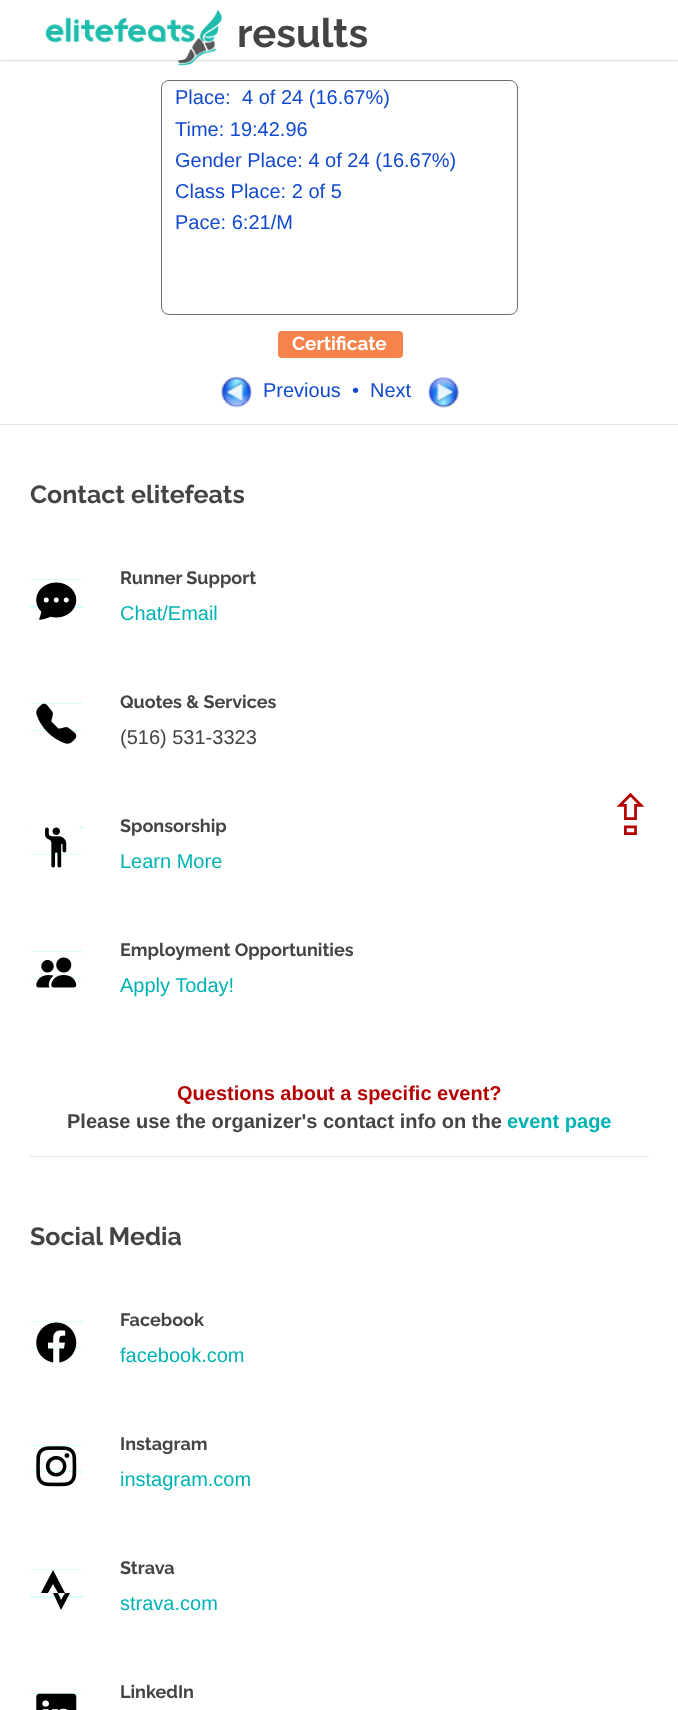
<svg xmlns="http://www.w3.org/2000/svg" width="678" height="1710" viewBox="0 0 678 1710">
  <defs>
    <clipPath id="clip1"><path d="M30 813h619v103H30z"/></clipPath>
  </defs>
  <rect width="100%" height="100%" fill="#fff"/>
  <path d="M0 0h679v60H0z" fill="#00000059" filter="blur(1px)"/>
  <path d="M0 0h678v60H0z" fill="#fff"/>
  <image x="45" y="9" width="177" height="57" href="img/1.png"/>
  <rect x="161.5" y="80.5" width="356" height="234" rx="7.5" fill="none" stroke="#6d6e70"/>
  <rect x="278" y="331" width="125" height="27" rx="4" fill="#f5834b"/>
  <image x="221" y="376" width="31" height="32" href="img/2.png"/>
  <image x="428" y="377" width="31" height="31" href="img/3.png"/>
  <path d="M0 424h678v1H0z" fill="#e6e6e6"/>
  <path d="M30 606V608H83V581H82V606Z" fill="#d8ffff"/>
  <path d="M30 579V580H82V605H83V579Z" fill="#d8ffff"/>
  <path d="M82 580h1v26H82z" fill="#fff"/>
  <image x="36" y="582" width="41" height="38" href="img/4.png"/>
  <path d="M30 730V731H83V705H82V730Z" fill="#d8ffff"/>
  <path d="M30 703V704H82V729H83V703Z" fill="#d8ffff"/>
  <path d="M82 704h1v26H82z" fill="#fff"/>
  <image x="36" y="703" width="41" height="41" href="img/5.png"/>
  <path d="M30 854V855H83V829H82V854Z" fill="#d8ffff"/>
  <path d="M30 826V828H82V853H83V826Z" fill="#d8ffff"/>
  <path d="M82 828h1v26H82z" fill="#fff"/>
  <g clip-path="url(#clip1)">
    <path d="M80 828H30L55 812Z" fill="#fff"/>
  </g>
  <image x="45" y="827" width="22" height="41" href="img/6.png"/>
  <path d="M30 978V979H83V954H82V978Z" fill="#d8ffff"/>
  <path d="M30 951V952H82V976H83V951Z" fill="#d8ffff"/>
  <path d="M82 953h1v25H82z" fill="#fff"/>
  <image x="36" y="957" width="41" height="31" href="img/7.png"/>
  <path d="M30 1156h619v1H30z" fill="#e6e6e6"/>
  <path d="M30 1348V1349H83V1324H82V1348Z" fill="#d8ffff"/>
  <path d="M30 1321V1322H82V1346H83V1321Z" fill="#d8ffff"/>
  <path d="M82 1323h1v25H82z" fill="#fff"/>
  <image x="36" y="1322" width="41" height="41" href="img/8.png"/>
  <path d="M30 1471V1473H83V1448H82V1471Z" fill="#d8ffff"/>
  <path d="M30 1445V1446H82V1470H83V1445Z" fill="#d8ffff"/>
  <path d="M82 1446h1v25H82z" fill="#fff"/>
  <path d="M30 1472H80L55 1488Z" fill="#fff"/>
  <image x="36" y="1446" width="41" height="41" href="img/9.png"/>
  <path d="M30 1596V1598H83V1571H82V1596Z" fill="#d8ffff"/>
  <path d="M30 1569V1570H82V1595H83V1569Z" fill="#d8ffff"/>
  <path d="M82 1570h1v26H82z" fill="#fff"/>
  <path d="M53 1570L41 1593H48L53 1584L58 1593H65ZM65 1593L61 1600L58 1593H53L61 1610L70 1593Z" fill="#000"/>
  <path d="M30 1693V1694H82V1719H83V1693Z" fill="#d8ffff"/>
  <path d="M82 1694h1v16H82z" fill="#fff"/>
  <image x="36" y="1693" width="41" height="17" href="img/10.png"/>
  <text x="237" y="47" font-family="Raleway" font-size="40" font-weight="bold" fill="#444">results</text>
  <g font-family="Liberation Sans" font-size="20" fill="#114acf">
    <text x="175" y="104">Place:</text>
    <text x="242" y="104">4 of 24 (16.67%)</text>
    <text x="175" y="136">Time: 19:42.96</text>
    <text x="175" y="167">Gender Place: 4 of 24 (16.67%)</text>
    <text x="175" y="198">Class Place: 2 of 5</text>
    <text x="175" y="229">Pace: 6:21/M</text>
  </g>
  <text x="292" y="350" font-family="Raleway" font-size="19" font-weight="bold" fill="#fff">Certificate</text>
  <text x="263" y="397" font-family="Liberation Sans" font-size="20" fill="#114acf" xml:space="preserve">Previous  •  Next</text>
  <text x="30" y="503" font-family="Raleway" font-size="25" font-weight="bold" fill="#444">Contact elitefeats</text>
  <text x="120" y="584" font-family="Raleway" font-size="18" font-weight="bold" fill="#444">Runner Support</text>
  <text x="120" y="620" font-family="Liberation Sans" font-size="20" fill="#00b3b3">Chat/Email</text>
  <text x="120" y="708" font-family="Raleway" font-size="18" font-weight="bold" fill="#444">Quotes &amp; Services</text>
  <text x="120" y="744" font-family="Liberation Sans" font-size="20" fill="#444">(516) 531-3323</text>
  <text x="120" y="832" font-family="Raleway" font-size="18" font-weight="bold" fill="#444">Sponsorship</text>
  <text x="120" y="868" font-family="Liberation Sans" font-size="20" fill="#00b3b3">Learn More</text>
  <text x="120" y="956" font-family="Raleway" font-size="18" font-weight="bold" fill="#444">Employment Opportunities</text>
  <text x="120" y="992" font-family="Liberation Sans" font-size="20" fill="#00b3b3">Apply Today!</text>
  <text x="177" y="1100" font-family="Liberation Sans" font-size="20" font-weight="bold" fill="#b30000">Questions about a specific event?</text>
  <text x="67" y="1128" font-family="Liberation Sans" font-size="20" font-weight="bold" fill="#444">Please use the organizer's contact info on the</text>
  <text x="507" y="1128" font-family="Liberation Sans" font-size="20" font-weight="bold" fill="#00b3b3">event page</text>
  <text x="30" y="1245" font-family="Raleway" font-size="25" font-weight="bold" fill="#444">Social Media</text>
  <text x="120" y="1326" font-family="Raleway" font-size="18" font-weight="bold" fill="#444">Facebook</text>
  <text x="120" y="1362" font-family="Liberation Sans" font-size="20" fill="#00b3b3">facebook.com</text>
  <text x="120" y="1450" font-family="Raleway" font-size="18" font-weight="bold" fill="#444">Instagram</text>
  <text x="120" y="1486" font-family="Liberation Sans" font-size="20" fill="#00b3b3">instagram.com</text>
  <text x="120" y="1574" font-family="Raleway" font-size="18" font-weight="bold" fill="#444">Strava</text>
  <text x="120" y="1610" font-family="Liberation Sans" font-size="20" fill="#00b3b3">strava.com</text>
  <text x="120" y="1698" font-family="Raleway" font-size="18" font-weight="bold" fill="#444">LinkedIn</text>
  <text x="607" y="835" font-family="DejaVu Sans" font-size="56" fill="#b30000">⇪</text>
</svg>
